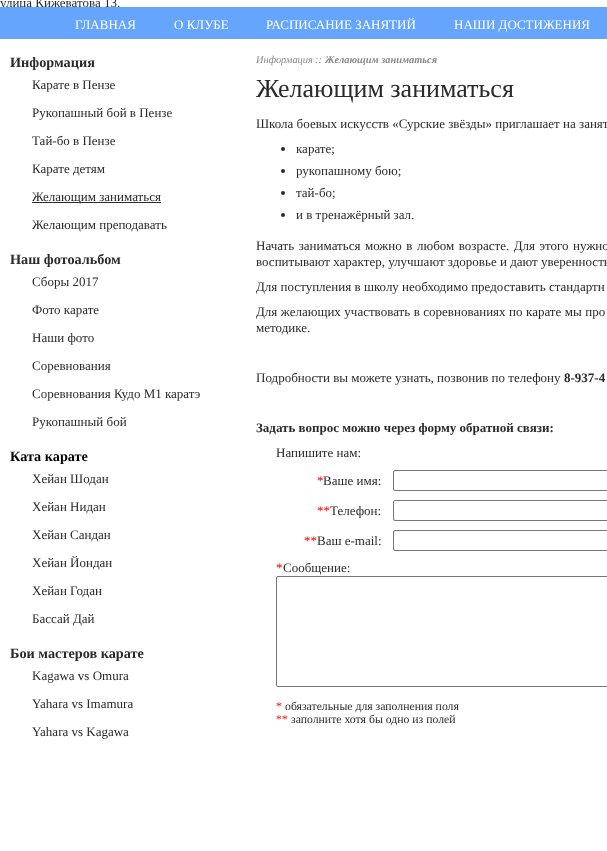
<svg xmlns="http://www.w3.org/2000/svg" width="607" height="851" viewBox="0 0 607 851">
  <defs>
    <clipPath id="clip1"><path d="M0 0h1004v7H0z"/></clipPath>
  </defs>
  <rect width="100%" height="100%" fill="#fff"/>
  <path d="M0 7h607v32H0z" fill="#65a5fe"/>
  <path d="M32 202h129v1H32z" fill="#2b2b2b"/>
  <circle cx="283" cy="149" r="2" fill="#2a2a2a"/>
  <circle cx="283" cy="171" r="2" fill="#2a2a2a"/>
  <circle cx="283" cy="193" r="2" fill="#2a2a2a"/>
  <circle cx="283" cy="215" r="2" fill="#2a2a2a"/>
  <rect x="393.5" y="470.5" width="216" height="20" rx="1.5" fill="none" stroke="#767676"/>
  <rect x="393.5" y="500.5" width="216" height="20" rx="1.5" fill="none" stroke="#767676"/>
  <rect x="393.5" y="530.5" width="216" height="20" rx="1.5" fill="none" stroke="#767676"/>
  <rect x="276.5" y="576.5" width="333" height="110" rx="1.5" fill="none" stroke="#767676"/>
  <g clip-path="url(#clip1)">
    <text x="0" y="7" font-family="Liberation Serif" font-size="13" fill="#2a2a2a">улица Кижеватова 13.</text>
  </g>
  <g font-family="Liberation Serif" font-size="13" fill="#fff">
    <text x="75" y="29">ГЛАВНАЯ</text>
    <text x="174" y="29">О КЛУБЕ</text>
    <text x="266" y="29">РАСПИСАНИЕ ЗАНЯТИЙ</text>
    <text x="454" y="29">НАШИ ДОСТИЖЕНИЯ</text>
  </g>
  <text x="10" y="67" font-family="Liberation Serif" font-size="14.25" font-weight="bold" fill="#2a2a2a">Информация</text>
  <g font-family="Liberation Serif" font-size="13" fill="#2a2a2a">
    <text x="32" y="89">Карате в Пензе</text>
    <text x="32" y="117">Рукопашный бой в Пензе</text>
    <text x="32" y="145">Тай-бо в Пензе</text>
    <text x="32" y="173">Карате детям</text>
    <text x="32" y="201">Желающим заниматься</text>
    <text x="32" y="229">Желающим преподавать</text>
  </g>
  <text x="10" y="264" font-family="Liberation Serif" font-size="14.25" font-weight="bold" fill="#2a2a2a">Наш фотоальбом</text>
  <g font-family="Liberation Serif" font-size="13" fill="#2a2a2a">
    <text x="32" y="286">Сборы 2017</text>
    <text x="32" y="314">Фото карате</text>
    <text x="32" y="342">Наши фото</text>
    <text x="32" y="370">Соревнования</text>
    <text x="32" y="398">Соревнования Кудо M1 каратэ</text>
    <text x="32" y="426">Рукопашный бой</text>
  </g>
  <text x="10" y="461" font-family="Liberation Serif" font-size="14.25" font-weight="bold" fill="#000">Ката карате</text>
  <g font-family="Liberation Serif" font-size="13" fill="#2a2a2a">
    <text x="32" y="483">Хейан Шодан</text>
    <text x="32" y="511">Хейан Нидан</text>
    <text x="32" y="539">Хейан Сандан</text>
    <text x="32" y="567">Хейан Йондан</text>
    <text x="32" y="595">Хейан Годан</text>
    <text x="32" y="623">Бассай Дай</text>
  </g>
  <text x="10" y="658" font-family="Liberation Serif" font-size="14.25" font-weight="bold" fill="#2a2a2a">Бои мастеров карате</text>
  <g font-family="Liberation Serif" font-size="13" fill="#2a2a2a">
    <text x="32" y="680">Kagawa vs Omura</text>
    <text x="32" y="708">Yahara vs Imamura</text>
    <text x="32" y="736">Yahara vs Kagawa</text>
  </g>
  <g font-family="Liberation Serif" font-size="10.4" font-style="italic" fill="#888">
    <text x="256" y="63">Информация</text>
    <text x="315" y="63">::</text>
  </g>
  <text x="325" y="63" font-family="Liberation Serif" font-size="10.4" font-weight="bold" font-style="italic" fill="#888">Желающим заниматься</text>
  <text x="256" y="97" font-family="Liberation Serif" font-size="26" fill="#2a2a2a">Желающим заниматься</text>
  <g font-family="Liberation Serif" font-size="13" fill="#2a2a2a">
    <text x="256" y="128">Школа боевых искусств «Сурские звёзды» приглашает на занят</text>
    <text x="296" y="153">карате;</text>
    <text x="296" y="175">рукопашному бою;</text>
    <text x="296" y="197">тай-бо;</text>
    <text x="296" y="219">и в тренажёрный зал.</text>
    <text x="256" y="250" word-spacing="1.25">Начать заниматься можно в любом возрасте. Для этого нужно</text>
    <text x="256" y="266">воспитывают характер, улучшают здоровье и дают уверенность</text>
    <text x="256" y="291">Для поступления в школу необходимо предоставить стандартн</text>
    <text x="256" y="316" word-spacing="0.25">Для желающих участвовать в соревнованиях по карате мы про</text>
    <text x="256" y="332">методике.</text>
    <text x="256" y="382">Подробности вы можете узнать, позвонив по телефону</text>
  </g>
  <g font-family="Liberation Serif" font-size="13" font-weight="bold" fill="#2a2a2a">
    <text x="564" y="382">8-937-4</text>
    <text x="256" y="432">Задать вопрос можно через форму обратной связи:</text>
  </g>
  <text x="276" y="457" font-family="Liberation Serif" font-size="13" fill="#2a2a2a">Напишите нам:</text>
  <text x="317" y="485" font-family="Liberation Serif" font-size="13" fill="#f00">*</text>
  <text x="323" y="485" font-family="Liberation Serif" font-size="13" fill="#2a2a2a">Ваше имя:</text>
  <text x="317" y="515" font-family="Liberation Serif" font-size="13" fill="#f00">**</text>
  <text x="330" y="515" font-family="Liberation Serif" font-size="13" fill="#2a2a2a">Телефон:</text>
  <text x="304" y="545" font-family="Liberation Serif" font-size="13" fill="#f00">**</text>
  <text x="317" y="545" font-family="Liberation Serif" font-size="13" fill="#2a2a2a">Ваш e-mail:</text>
  <text x="276" y="572" font-family="Liberation Serif" font-size="13" fill="#f00">*</text>
  <text x="283" y="572" font-family="Liberation Serif" font-size="13" fill="#2a2a2a">Сообщение:</text>
  <text x="276" y="710" font-family="Liberation Serif" font-size="11.75" fill="#f00">*</text>
  <text x="285" y="710" font-family="Liberation Serif" font-size="11.75" fill="#2a2a2a">обязательные для заполнения поля</text>
  <text x="276" y="723" font-family="Liberation Serif" font-size="11.75" fill="#f00">**</text>
  <text x="291" y="723" font-family="Liberation Serif" font-size="11.75" fill="#2a2a2a">заполните хотя бы одно из полей</text>
</svg>
